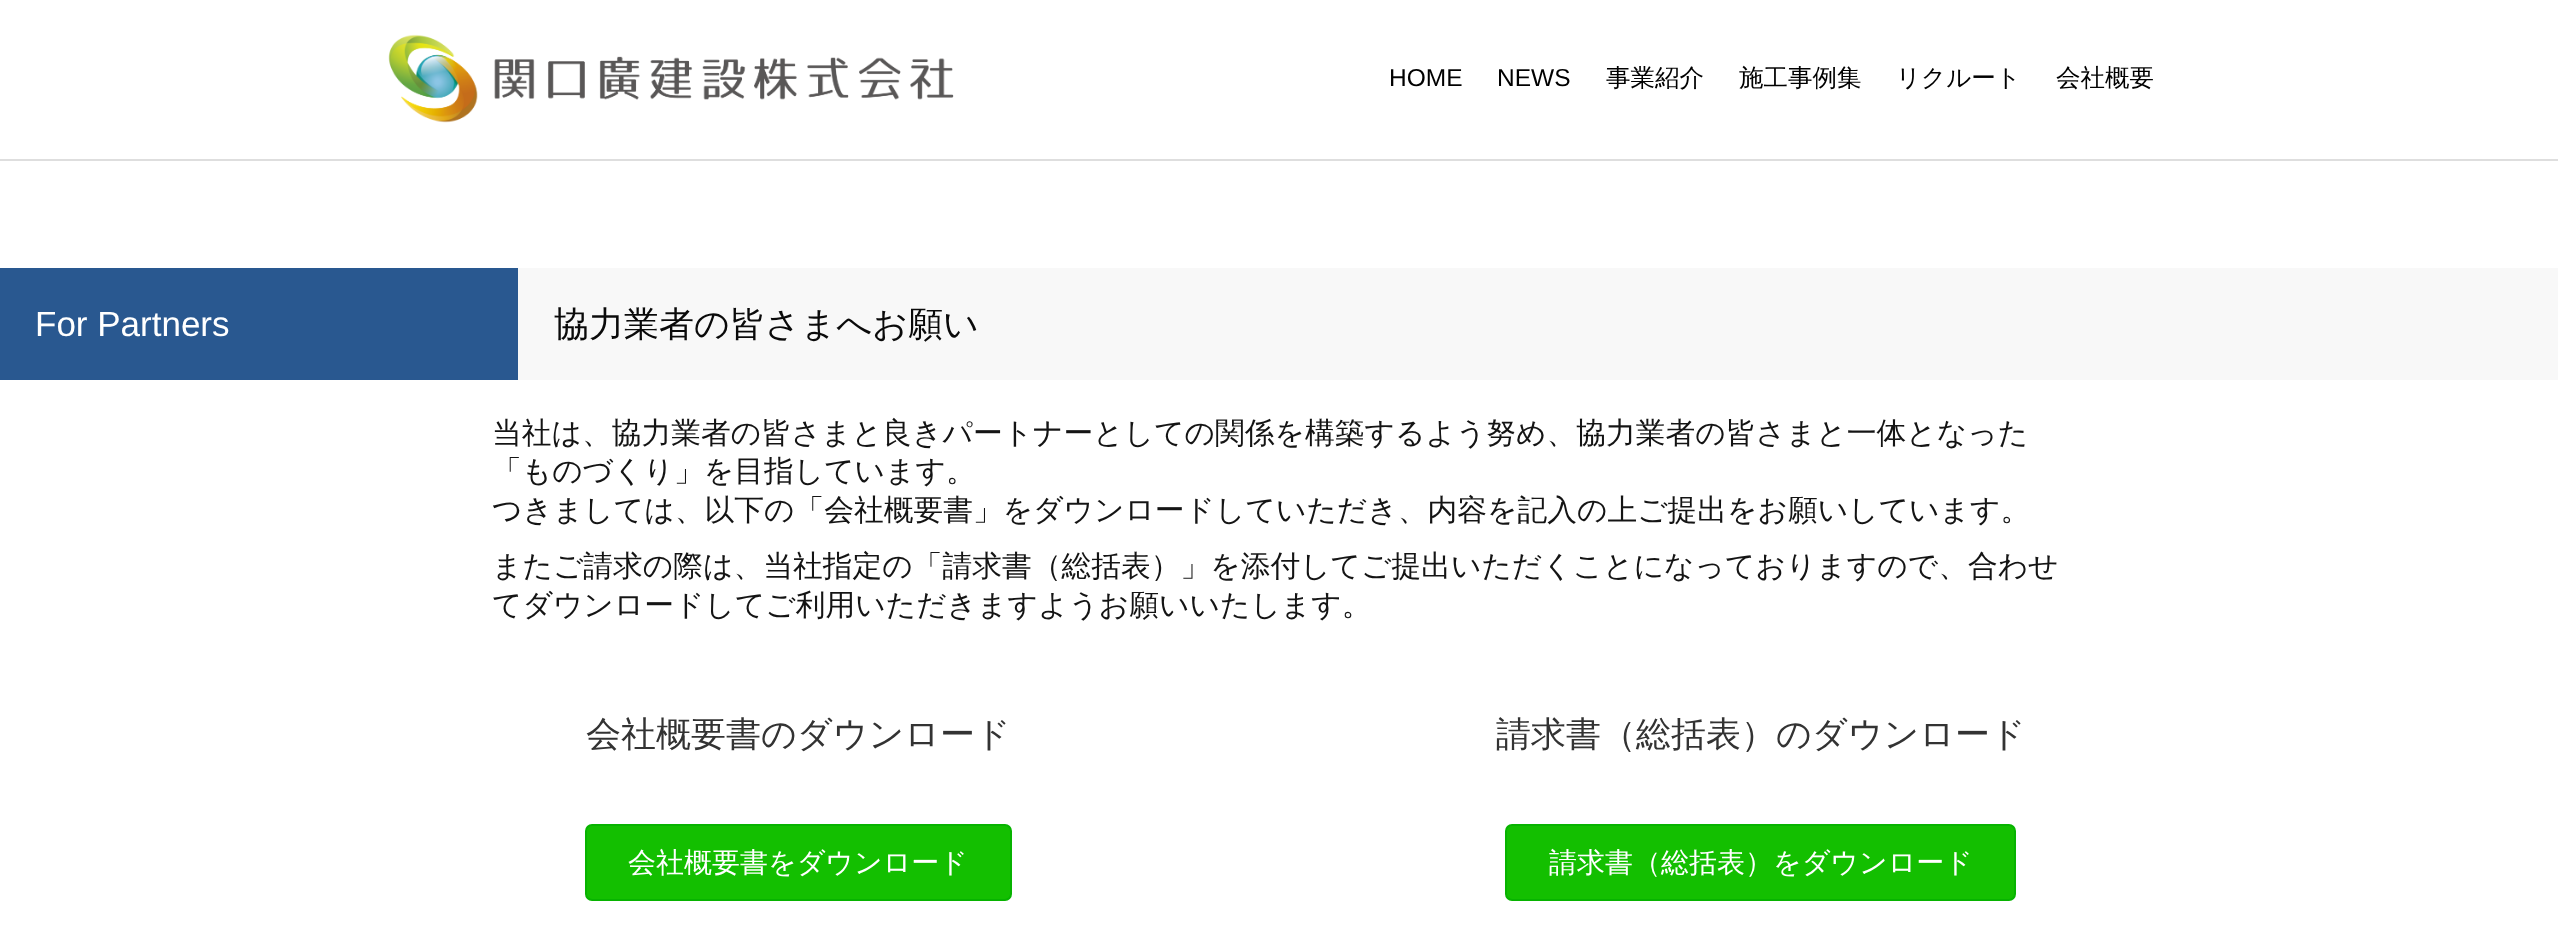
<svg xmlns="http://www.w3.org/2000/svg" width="2558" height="933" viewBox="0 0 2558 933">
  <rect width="100%" height="100%" fill="#fff"/>
  <path d="M0 159h2558v2H0z" fill="#dedede"/>
  <image x="388" y="34" width="566" height="89" href="img/1.png"/>
  <path d="M0 268h518v112H0z" fill="#295890"/>
  <path d="M518 268h2040v112H518z" fill="#f8f8f8"/>
  <rect x="586" y="825" width="425" height="75" rx="6" fill="#13bf00" stroke="#07b300" stroke-width="2"/>
  <rect x="1506" y="825" width="509" height="75" rx="6" fill="#13bf00" stroke="#07b300" stroke-width="2"/>
  <g font-family="Liberation Sans" font-size="24.5" fill="#000">
    <text x="1389" y="86">HOME</text>
    <text x="1497" y="86">NEWS</text>
  </g>
  <g font-family="WenQuanYi Zen Hei" font-size="24.5" font-weight="500" fill="#000">
    <text x="1606" y="86">事業紹介</text>
    <text x="1739" y="86">施工事例集</text>
    <text x="1896" y="86">リクルート</text>
    <text x="2056" y="86">会社概要</text>
  </g>
  <text x="35" y="336" font-family="Liberation Sans" font-size="35" fill="#fff">For Partners</text>
  <text x="554" y="336" font-family="WenQuanYi Zen Hei" font-size="35" font-weight="500" fill="#0a0a0a">協力業者の皆さまへお願い</text>
  <g font-family="WenQuanYi Zen Hei" font-size="29.75" font-weight="500" fill="#141414">
    <text x="492" y="443">当社は、協力業者の皆さまと良きパートナーとしての関係を構築するよう努め、協力業者の皆さまと一体となった</text>
    <text x="492" y="481">「ものづくり」を目指しています。</text>
    <text x="492" y="520">つきましては、以下の「会社概要書」をダウンロードしていただき、内容を記入の上ご提出をお願いしています。</text>
    <text x="492" y="576">またご請求の際は、当社指定の「請求書（総括表）」を添付してご提出いただくことになっておりますので、合わせ</text>
    <text x="492" y="615">てダウンロードしてご利用いただきますようお願いいたします。</text>
  </g>
  <text x="586" y="746" font-family="WenQuanYi Zen Hei" font-size="35" font-weight="500" fill="#333">会社概要書のダウンロード</text>
  <text x="628" y="872" font-family="WenQuanYi Zen Hei" font-size="28" font-weight="500" fill="#fff">会社概要書をダウンロード</text>
  <text x="1496" y="746" font-family="WenQuanYi Zen Hei" font-size="35" font-weight="500" fill="#333">請求書（総括表）のダウンロード</text>
  <text x="1549" y="872" font-family="WenQuanYi Zen Hei" font-size="28" font-weight="500" fill="#fff">請求書（総括表）をダウンロード</text>
</svg>
